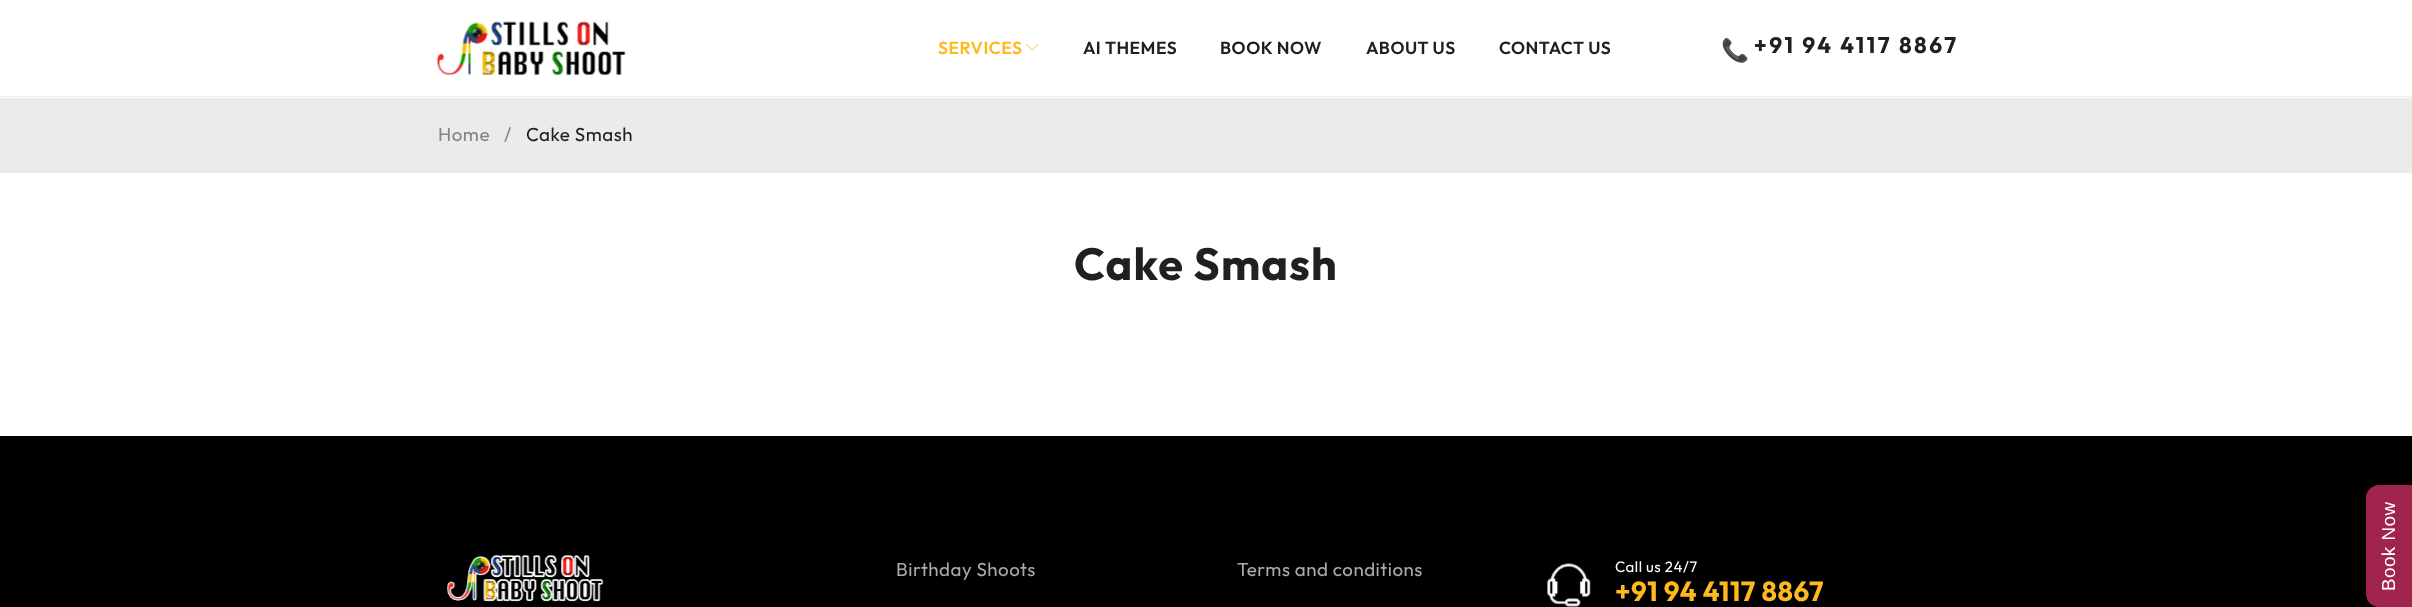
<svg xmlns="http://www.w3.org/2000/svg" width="2412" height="607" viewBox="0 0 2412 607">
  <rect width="100%" height="100%" fill="#fff"/>
  <path d="M0 96h2412v1H0z" fill="#ebebeb"/>
  <image x="437" y="21" width="189" height="55" href="img/1.png"/>
  <image x="1026" y="44" width="13" height="7" href="img/2.png"/>
  <path d="M0 98h2412v75H0z" fill="#ebebeb"/>
  <path d="M0 436h2412v171H0z" fill="#000"/>
  <image x="447" y="555" width="157" height="47" href="img/3.png"/>
  <image x="1547" y="563" width="44" height="44" href="img/4.png"/>
  <path d="M2366 594V497C2366 491 2372 485 2379 485H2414V607H2379C2372 607 2366 601 2366 594Z" fill="#a0244e"/>
  <text x="938" y="54" font-family="Outfit" font-size="17.5" font-weight="600" letter-spacing="0.5" fill="#ffb91f">SERVICES</text>
  <g font-family="Outfit" font-size="17.5" font-weight="600" letter-spacing="0.5" fill="#202020">
    <text x="1083" y="54">AI THEMES</text>
    <text x="1220" y="54">BOOK NOW</text>
    <text x="1366" y="54">ABOUT US</text>
    <text x="1499" y="54">CONTACT US</text>
  </g>
  <text x="1721" y="58" font-family="Noto Color Emoji" font-size="22.5" letter-spacing="2.5" fill="#202020">📞</text>
  <text x="1754" y="53" font-family="Outfit" font-size="22.5" font-weight="bold" letter-spacing="2.5" fill="#202020">+91 94 4117 8867</text>
  <g font-family="Outfit" font-size="18.75" letter-spacing="0.5" fill="#848484">
    <text x="438" y="141">Home</text>
    <text x="504" y="141">/</text>
  </g>
  <text x="526" y="141" font-family="Outfit" font-size="18.75" letter-spacing="0.5" fill="#202020">Cake Smash</text>
  <text x="1074" y="280" font-family="Outfit" font-size="45" font-weight="bold" letter-spacing="1.1" fill="#202020">Cake Smash</text>
  <g font-family="Outfit" font-size="18.75" letter-spacing="0.5" fill="#aaa">
    <text x="896" y="576">Birthday Shoots</text>
    <text x="1237" y="576">Terms and conditions</text>
  </g>
  <text x="1615" y="572" font-family="Outfit" font-size="15" letter-spacing="0.5" fill="#fff">Call us 24/7</text>
  <text x="1615" y="601" font-family="Outfit" font-size="27.5" font-weight="bold" letter-spacing="0.5" fill="#ffb91f">+91 94 4117 8867</text>
  <text x="2395" y="591" transform="rotate(-90 2395 591)" font-family="Liberation Sans" font-size="18.75" letter-spacing="0.5" fill="#fff">Book Now</text>
</svg>
